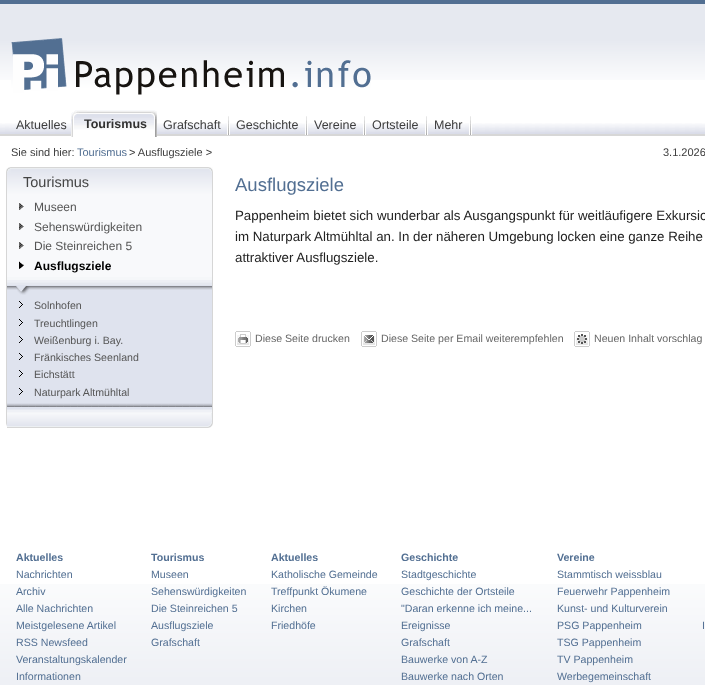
<svg xmlns="http://www.w3.org/2000/svg" width="705" height="685" viewBox="0 0 705 685">
  <rect width="100%" height="100%" fill="#fff"/>
  <image x="0" y="0" width="705" height="80" href="img/1.png"/>
  <image x="11" y="38" width="360" height="57" href="img/2.png"/>
  <image x="0" y="135" width="705" height="1" href="img/3.png"/>
  <image x="0" y="123" width="705" height="12" href="img/4.png"/>
  <image x="71" y="110" width="16" height="27" href="img/5.png"/>
  <image x="87" y="110" width="70" height="27" href="img/6.png"/>
  <image x="227" y="116" width="3" height="19" href="img/7.png"/>
  <image x="305" y="116" width="3" height="19" href="img/7.png"/>
  <image x="363" y="116" width="3" height="19" href="img/7.png"/>
  <image x="425" y="116" width="3" height="19" href="img/7.png"/>
  <image x="469" y="116" width="3" height="19" href="img/7.png"/>
  <image x="6" y="167" width="5" height="31" href="img/8.png"/>
  <image x="11" y="167" width="202" height="31" href="img/9.png"/>
  <path d="M6 198h1v214H6z" fill="#d6d6d6"/>
  <image x="6" y="412" width="1" height="16" href="img/10.png"/>
  <image x="7" y="413" width="206" height="15" href="img/11.png"/>
  <path d="M212 198h1v215H212z" fill="#d6d6d6"/>
  <path d="M7 198h205v79H7z" fill="#f8f9fb"/>
  <image x="19" y="202" width="5" height="8" href="img/12.png"/>
  <image x="19" y="222" width="5" height="8" href="img/12.png"/>
  <image x="19" y="241" width="5" height="8" href="img/12.png"/>
  <image x="19" y="261" width="5" height="8" href="img/13.png"/>
  <path d="M7 295h205v106H7z" fill="#dfe3ee"/>
  <image x="7" y="277" width="205" height="18" href="img/14.png"/>
  <image x="19" y="301" width="4" height="7" href="img/15.png"/>
  <image x="19" y="319" width="4" height="7" href="img/15.png"/>
  <image x="19" y="336" width="4" height="7" href="img/15.png"/>
  <image x="19" y="353" width="4" height="7" href="img/15.png"/>
  <image x="19" y="370" width="4" height="7" href="img/15.png"/>
  <image x="19" y="388" width="4" height="7" href="img/15.png"/>
  <image x="7" y="401" width="205" height="12" href="img/16.png"/>
  <image x="235" y="331" width="16" height="16" href="img/17.png"/>
  <image x="361" y="331" width="16" height="16" href="img/18.png"/>
  <image x="574" y="331" width="16" height="16" href="img/19.png"/>
  <image x="0" y="584" width="705" height="101" href="img/20.png"/>
  <text x="16" y="129" font-family="Liberation Sans" font-size="12.5" fill="#3d3d3d">Aktuelles</text>
  <text x="84" y="128" font-family="Liberation Sans" font-size="12.5" font-weight="bold" fill="#313131">Tourismus</text>
  <g font-family="Liberation Sans" font-size="12.5" fill="#3d3d3d">
    <text x="163" y="129">Grafschaft</text>
    <text x="236" y="129">Geschichte</text>
    <text x="314" y="129">Vereine</text>
    <text x="372" y="129">Ortsteile</text>
    <text x="434" y="129">Mehr</text>
  </g>
  <text x="11" y="156" font-family="Liberation Sans" font-size="11" fill="#3d3d3d">Sie sind hier:</text>
  <text x="77" y="156" font-family="Liberation Sans" font-size="11" fill="#526f92">Tourismus</text>
  <g font-family="Liberation Sans" font-size="11" fill="#3d3d3d">
    <text x="129" y="156">&gt; Ausflugsziele &gt;</text>
    <text x="663" y="156">3.1.2026</text>
  </g>
  <text x="23" y="187" font-family="Liberation Sans" font-size="14.5" fill="#444">Tourismus</text>
  <g font-family="Liberation Sans" font-size="12" fill="#555">
    <text x="34" y="211">Museen</text>
    <text x="34" y="231">Sehenswürdigkeiten</text>
    <text x="34" y="250">Die Steinreichen 5</text>
  </g>
  <text x="34" y="270" font-family="Liberation Sans" font-size="12" font-weight="bold" fill="#000">Ausflugsziele</text>
  <g font-family="Liberation Sans" font-size="10.6" fill="#555">
    <text x="34" y="309">Solnhofen</text>
    <text x="34" y="327">Treuchtlingen</text>
    <text x="34" y="344">Weißenburg i. Bay.</text>
    <text x="34" y="361">Fränkisches Seenland</text>
    <text x="34" y="378">Eichstätt</text>
    <text x="34" y="396">Naturpark Altmühltal</text>
  </g>
  <text x="235" y="191" font-family="Liberation Sans" font-size="18.5" fill="#526f92">Ausflugsziele</text>
  <g font-family="Liberation Sans" font-size="13.3" fill="#222">
    <text x="235" y="220">Pappenheim bietet sich wunderbar als Ausgangspunkt für weitläufigere Exkursio</text>
    <text x="235" y="241">im Naturpark Altmühltal an. In der näheren Umgebung locken eine ganze Reihe</text>
    <text x="235" y="262">attraktiver Ausflugsziele.</text>
  </g>
  <g font-family="Liberation Sans" font-size="10.6" fill="#666">
    <text x="255" y="342">Diese Seite drucken</text>
    <text x="381" y="342">Diese Seite per Email weiterempfehlen</text>
    <text x="594" y="342">Neuen Inhalt vorschlag</text>
  </g>
  <text x="16" y="561" font-family="Liberation Sans" font-size="10.6" font-weight="bold" fill="#526f92">Aktuelles</text>
  <g font-family="Liberation Sans" font-size="10.6" fill="#526f92">
    <text x="16" y="578">Nachrichten</text>
    <text x="16" y="595">Archiv</text>
    <text x="16" y="612">Alle Nachrichten</text>
    <text x="16" y="629">Meistgelesene Artikel</text>
    <text x="16" y="646">RSS Newsfeed</text>
    <text x="16" y="663">Veranstaltungskalender</text>
    <text x="16" y="680">Informationen</text>
  </g>
  <text x="151" y="561" font-family="Liberation Sans" font-size="10.6" font-weight="bold" fill="#526f92">Tourismus</text>
  <g font-family="Liberation Sans" font-size="10.6" fill="#526f92">
    <text x="151" y="578">Museen</text>
    <text x="151" y="595">Sehenswürdigkeiten</text>
    <text x="151" y="612">Die Steinreichen 5</text>
    <text x="151" y="629">Ausflugsziele</text>
    <text x="151" y="646">Grafschaft</text>
  </g>
  <text x="271" y="561" font-family="Liberation Sans" font-size="10.6" font-weight="bold" fill="#526f92">Aktuelles</text>
  <g font-family="Liberation Sans" font-size="10.6" fill="#526f92">
    <text x="271" y="578">Katholische Gemeinde</text>
    <text x="271" y="595">Treffpunkt Ökumene</text>
    <text x="271" y="612">Kirchen</text>
    <text x="271" y="629">Friedhöfe</text>
  </g>
  <text x="401" y="561" font-family="Liberation Sans" font-size="10.6" font-weight="bold" fill="#526f92">Geschichte</text>
  <g font-family="Liberation Sans" font-size="10.6" fill="#526f92">
    <text x="401" y="578">Stadtgeschichte</text>
    <text x="401" y="595">Geschichte der Ortsteile</text>
    <text x="401" y="612">"Daran erkenne ich meine...</text>
    <text x="401" y="629">Ereignisse</text>
    <text x="401" y="646">Grafschaft</text>
    <text x="401" y="663">Bauwerke von A-Z</text>
    <text x="401" y="680">Bauwerke nach Orten</text>
  </g>
  <text x="557" y="561" font-family="Liberation Sans" font-size="10.6" font-weight="bold" fill="#526f92">Vereine</text>
  <g font-family="Liberation Sans" font-size="10.6" fill="#526f92">
    <text x="557" y="578">Stammtisch weissblau</text>
    <text x="557" y="595">Feuerwehr Pappenheim</text>
    <text x="557" y="612">Kunst- und Kulturverein</text>
    <text x="557" y="629">PSG Pappenheim</text>
    <text x="557" y="646">TSG Pappenheim</text>
    <text x="557" y="663">TV Pappenheim</text>
    <text x="557" y="680">Werbegemeinschaft</text>
    <text x="702" y="629">I</text>
  </g>
</svg>
